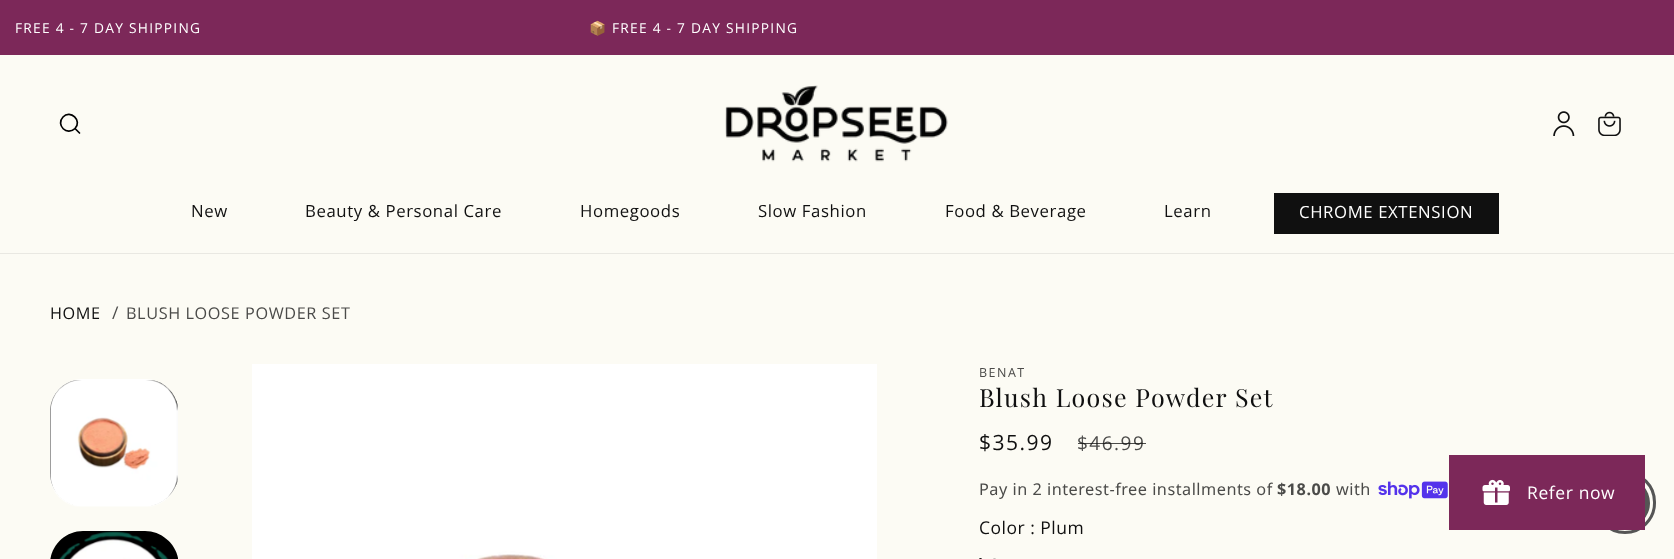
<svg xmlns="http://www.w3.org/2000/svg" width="1674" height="559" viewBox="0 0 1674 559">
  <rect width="100%" height="100%" fill="#fcfbf4"/>
  <path d="M0 0h1674v55H0z" fill="#7c2859"/>
  <path d="M0 253h1674v1H0z" fill="#e9e8e2"/>
  <path d="M79.5 133L75 128.5M75 128.5C82.5 121 70.5 109 63 117C55.5 125 67 136.5 75 128.5Z" fill="none" stroke="#000" stroke-width="1.7" stroke-linecap="round" stroke-linejoin="round"/>
  <image x="725" y="85" width="223" height="77" href="img/1.png"/>
  <image x="1553" y="111" width="22" height="25" href="img/2.png"/>
  <image x="1598" y="111" width="23" height="25" href="img/3.png"/>
  <path d="M1274 193h225v41H1274z" fill="#101010"/>
  <path d="M50 412C50 396 61 383 76 380H152C165 382 175 393 178 406V479C175 494 161 506 145 506H83C65 506 50 491 50 473Z" fill="#000"/>
  <image x="50" y="379" width="128" height="128" href="img/4.png"/>
  <path d="M83 531H145C161 531 175 543 178 558V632C175 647 161 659 145 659H83C65 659 50 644 50 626V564C50 546 65 531 83 531Z" fill="#000"/>
  <image x="59" y="531" width="110" height="28" href="img/5.png"/>
  <image x="252" y="364" width="625" height="195" href="img/6.png"/>
  <image x="1378" y="481" width="70" height="18" href="img/7.png"/>
  <circle cx="980.5" cy="559.5" r="1.5" fill="#101010"/>
  <circle cx="994.5" cy="559.5" r="1.5" fill="#c1c0bb"/>
  <circle cx="1625" cy="503" r="25" fill="#555"/>
  <rect x="1595.5" y="472.5" width="59" height="60" rx="29.5" fill="none" stroke="#555" stroke-width="3"/>
  <path d="M1449 455h196v75H1449z" fill="#7c2859"/>
  <image x="1482" y="479" width="28" height="26" href="img/8.png"/>
  <text x="15" y="33" font-family="Open Sans" font-size="13.75" letter-spacing="1.25" fill="#fff">FREE 4 - 7 DAY SHIPPING</text>
  <text x="589" y="33" font-family="Noto Color Emoji" font-size="13.75" letter-spacing="1.25" fill="#fff">📦</text>
  <text x="612" y="33" font-family="Open Sans" font-size="13.75" letter-spacing="1.25" fill="#fff">FREE 4 - 7 DAY SHIPPING</text>
  <g font-family="Open Sans" font-size="16.75" letter-spacing="0.6" fill="#101010">
    <text x="191" y="217">New</text>
    <text x="305" y="217">Beauty &amp; Personal Care</text>
    <text x="580" y="217">Homegoods</text>
    <text x="758" y="217">Slow Fashion</text>
    <text x="945" y="217">Food &amp; Beverage</text>
    <text x="1164" y="217">Learn</text>
  </g>
  <text x="1299" y="218" font-family="Open Sans" font-size="16.75" letter-spacing="0.6" fill="#fff">CHROME EXTENSION</text>
  <text x="50" y="319" font-family="Open Sans" font-size="16.25" letter-spacing="0.6" fill="#101010">HOME</text>
  <text x="112" y="319" font-family="Open Sans" font-size="17.5" letter-spacing="0.6" fill="#4b4b49">/</text>
  <text x="126" y="319" font-family="Open Sans" font-size="16.25" letter-spacing="0.6" fill="#4b4b49">BLUSH LOOSE POWDER SET</text>
  <text x="979" y="377" font-family="Open Sans" font-size="12.5" letter-spacing="1.5" fill="#4b4b49">BENAT</text>
  <text x="979" y="407" font-family="Playfair Display" font-size="25" letter-spacing="1.25" fill="#101010">Blush Loose Powder Set</text>
  <text x="979" y="450" font-family="Open Sans" font-size="21" letter-spacing="1.5" fill="#101010">$35.99</text>
  <text x="1077" y="450" font-family="Open Sans" font-size="19" letter-spacing="1.5" fill="#4b4b49">$46.99</text>
  <path d="M1078 443h68v1H1078z" fill="#101010bf"/>
  <text x="979" y="495" font-family="Noto Sans" font-size="16.25" letter-spacing="0.5" fill="#4b4b49">Pay in 2 interest-free installments of</text>
  <text x="1277" y="495" font-family="Noto Sans" font-size="16.25" font-weight="bold" letter-spacing="0.5" fill="#4b4b49">$18.00</text>
  <text x="1336" y="495" font-family="Noto Sans" font-size="16.25" letter-spacing="0.5" fill="#4b4b49">with</text>
  <text x="979" y="534" font-family="Open Sans" font-size="17.5" letter-spacing="0.5" fill="#101010">Color : Plum</text>
  <text x="1527" y="499" font-family="Open Sans" font-size="17.5" letter-spacing="0.6" fill="#fff">Refer now</text>
</svg>
